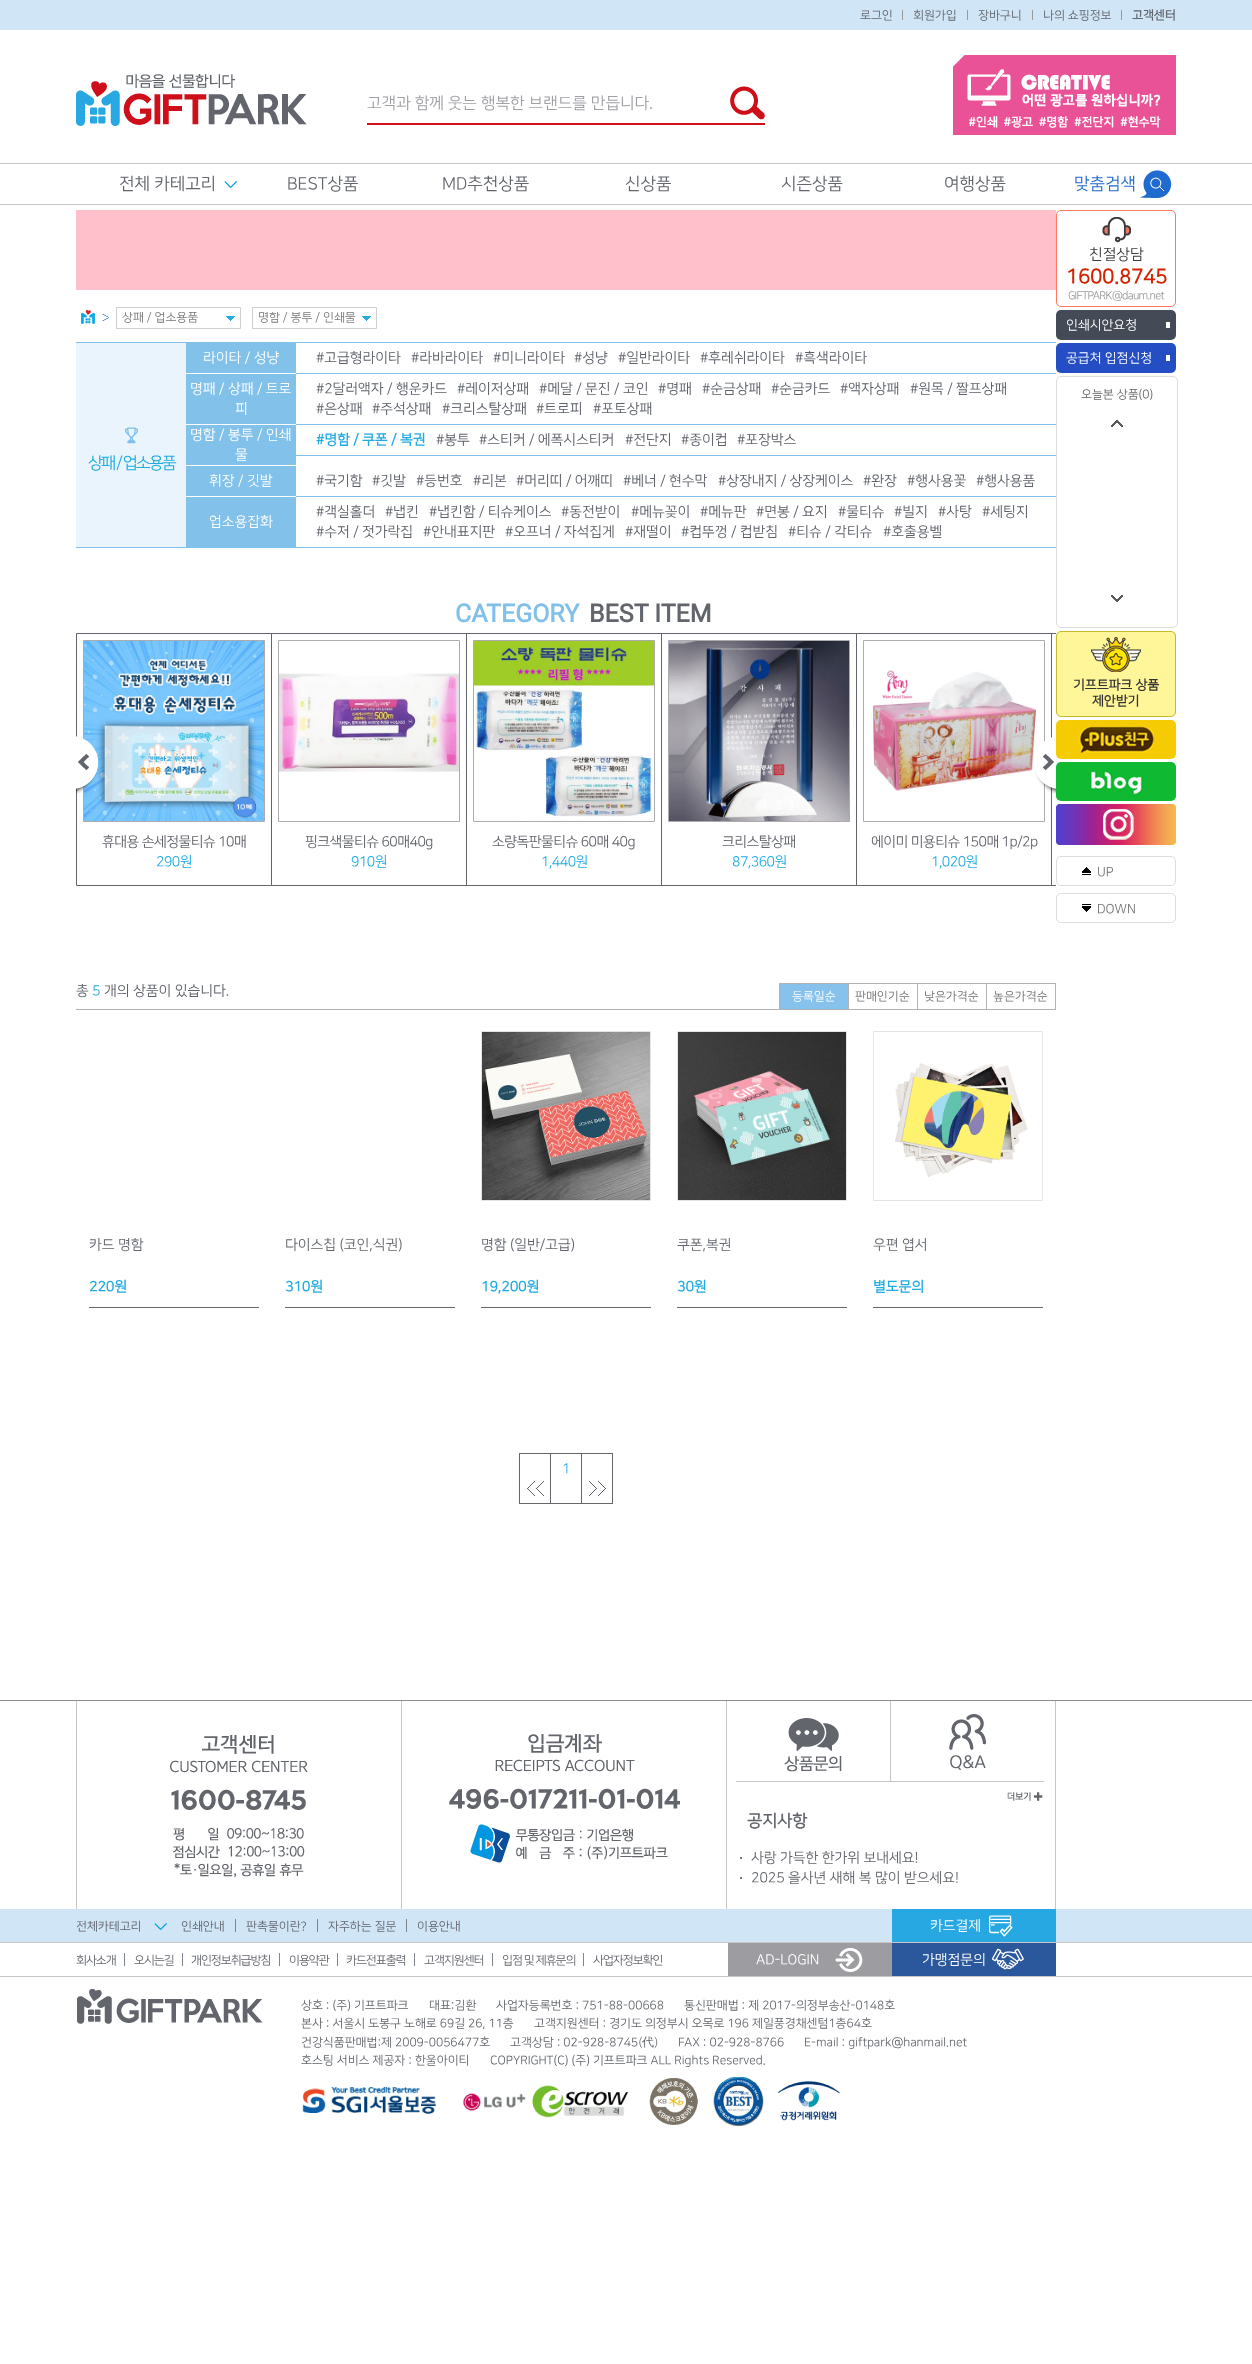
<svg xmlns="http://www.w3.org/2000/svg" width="1252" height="2364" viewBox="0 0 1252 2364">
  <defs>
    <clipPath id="clip1"><path d="M76 633h980v253H76z"/></clipPath>
    <clipPath id="clip2"><path d="M122 312h98v12H122z"/></clipPath>
    <clipPath id="clip3"><path d="M258 312h98v12H258z"/></clipPath>
  </defs>
  <rect width="100%" height="100%" fill="#fff"/>
  <path d="M0 0h1252v30H0z" fill="#d0e5f6"/>
  <path d="M902 10h1v10H902z" fill="#999"/>
  <path d="M967 10h1v10H967z" fill="#999"/>
  <path d="M1032 10h1v10H1032z" fill="#999"/>
  <path d="M1121 10h1v10H1121z" fill="#999"/>
  <image x="76" y="74" width="231" height="52" href="img/1.png"/>
  <path d="M367 123h398v2H367z" fill="#ce0e19"/>
  <image x="730" y="86" width="35" height="34" href="img/2.png"/>
  <image x="953" y="55" width="223" height="80" href="img/3.png"/>
  <path d="M0 163h1252v1H0z" fill="#c8c5c4"/>
  <path d="M0 204h1252v1H0z" fill="#c8c5c4"/>
  <image x="224" y="181" width="13" height="7" href="img/4.png"/>
  <image x="1140" y="170" width="32" height="28" href="img/5.png"/>
  <path d="M76 210h980v80H76z" fill="#ffc0cb"/>
  <image x="81" y="310" width="28" height="14" href="img/6.png"/>
  <image x="226" y="316" width="9" height="5" href="img/7.png"/>
  <path d="M116.5 307.5h124v21H116.5z" fill="none" stroke="#cecfce"/>
  <image x="362" y="316" width="9" height="5" href="img/7.png"/>
  <path d="M252.5 307.5h124v21H252.5z" fill="none" stroke="#cecfce"/>
  <path d="M186 342h110v31H186z" fill="#82c1ea"/>
  <path d="M296 342h760v1H296z" fill="#82c1ea"/>
  <path d="M296 373h760v1H296z" fill="#82c1ea"/>
  <path d="M186 374h110v50H186z" fill="#82c1ea"/>
  <path d="M296 424h760v1H296z" fill="#82c1ea"/>
  <path d="M186 425h110v40H186z" fill="#82c1ea"/>
  <path d="M296 455h760v1H296z" fill="#82c1ea"/>
  <path d="M76 343h110v204H76z" fill="#eaf4fc"/>
  <path d="M76 342h110v1H76z" fill="#82c1ea"/>
  <path d="M76 547h110v1H76z" fill="#82c1ea"/>
  <image x="125" y="427" width="13" height="17" href="img/8.png"/>
  <path d="M186 466h110v30H186z" fill="#82c1ea"/>
  <path d="M296 496h760v1H296z" fill="#82c1ea"/>
  <path d="M186 497h110v51H186z" fill="#82c1ea"/>
  <path d="M296 547h760v1H296z" fill="#82c1ea"/>
  <path d="M76.5 633.5h195v252H76.5z" fill="none" stroke="#63656c"/>
  <path d="M83.5 640.5h181v181H83.5z" fill="none" stroke="#adabae"/>
  <image x="84" y="641" width="180" height="180" href="img/11.png"/>
  <image x="76" y="736" width="22" height="58" href="img/9.png"/>
  <path d="M271.5 633.5h195v252H271.5z" fill="none" stroke="#63656c"/>
  <path d="M466.5 633.5h195v252H466.5z" fill="none" stroke="#63656c"/>
  <path d="M661.5 633.5h195v252H661.5z" fill="none" stroke="#63656c"/>
  <path d="M856.5 633.5h195v252H856.5z" fill="none" stroke="#63656c"/>
  <path d="M863.5 640.5h181v181H863.5z" fill="none" stroke="#adabae"/>
  <image x="871" y="670" width="166" height="121" href="img/15.png"/>
  <g clip-path="url(#clip1)">
    <path d="M1051.5 633.5h195v252H1051.5z" fill="none" stroke="#63656c"/>
  </g>
  <image x="1034" y="737" width="22" height="57" href="img/10.png"/>
  <path d="M278.5 640.5h181v181H278.5z" fill="none" stroke="#adabae"/>
  <image x="279" y="673" width="180" height="99" href="img/12.png"/>
  <path d="M473.5 640.5h181v181H473.5z" fill="none" stroke="#adabae"/>
  <image x="474" y="641" width="180" height="180" href="img/13.png"/>
  <path d="M668.5 640.5h181v181H668.5z" fill="none" stroke="#adabae"/>
  <image x="669" y="641" width="180" height="180" href="img/14.png"/>
  <path d="M76 1009h980v1H76z" fill="#b2b2b6"/>
  <path d="M779 983h70v1H779z" fill="#b2b2b6"/>
  <path d="M848 983h1v26H848z" fill="#b2b2b6"/>
  <path d="M779 983h1v26H779z" fill="#b2b2b6"/>
  <path d="M780 984h68v25H780z" fill="#86c2eb"/>
  <path d="M848 983h70v1H848z" fill="#b2b2b6"/>
  <path d="M917 983h1v26H917z" fill="#b2b2b6"/>
  <path d="M917 983h70v1H917z" fill="#b2b2b6"/>
  <path d="M986 983h1v26H986z" fill="#b2b2b6"/>
  <path d="M986 983h70v1H986z" fill="#b2b2b6"/>
  <path d="M1055 983h1v26H1055z" fill="#b2b2b6"/>
  <path d="M89 1307h170v1H89z" fill="#63656c"/>
  <path d="M285 1307h170v1H285z" fill="#63656c"/>
  <path d="M481.5 1031.5h169v169H481.5z" fill="none" stroke="#e4e4e4"/>
  <image x="482" y="1032" width="168" height="168" href="img/16.png"/>
  <path d="M481 1307h170v1H481z" fill="#63656c"/>
  <path d="M677.5 1031.5h169v169H677.5z" fill="none" stroke="#e4e4e4"/>
  <image x="678" y="1032" width="168" height="168" href="img/17.png"/>
  <path d="M677 1307h170v1H677z" fill="#63656c"/>
  <path d="M873.5 1031.5h169v169H873.5z" fill="none" stroke="#e4e4e4"/>
  <image x="895" y="1063" width="133" height="114" href="img/18.png"/>
  <path d="M873 1307h170v1H873z" fill="#63656c"/>
  <path d="M581 1453h32v1H581z" fill="#66666d"/>
  <path d="M612 1453h1v51H612z" fill="#66666d"/>
  <path d="M581 1503h32v1H581z" fill="#66666d"/>
  <path d="M581 1453h1v51H581z" fill="#66666d"/>
  <path d="M550 1453h32v1H550z" fill="#66666d"/>
  <path d="M550 1503h32v1H550z" fill="#66666d"/>
  <path d="M550 1453h1v51H550z" fill="#66666d"/>
  <path d="M519 1453h32v1H519z" fill="#66666d"/>
  <path d="M519 1503h32v1H519z" fill="#66666d"/>
  <path d="M519 1453h1v51H519z" fill="#66666d"/>
  <image x="527" y="1481" width="17" height="15" href="img/19.png"/>
  <image x="589" y="1481" width="17" height="15" href="img/20.png"/>
  <image x="1102" y="217" width="29" height="26" href="img/21.png"/>
  <rect x="1056.5" y="210.5" width="119" height="96" rx="4.5" fill="none" stroke="#ff775e"/>
  <rect x="1056" y="310" width="120" height="30" rx="5" fill="#454a57"/>
  <path d="M1166 322h4v6H1166z" fill="#fff"/>
  <rect x="1056" y="343" width="120" height="30" rx="5" fill="#254ec5"/>
  <path d="M1166 355h4v6H1166z" fill="#fff"/>
  <rect x="1056.5" y="376.5" width="121" height="251" rx="4.5" fill="none" stroke="#ddd"/>
  <image x="1111" y="420" width="12" height="7" href="img/22.png"/>
  <image x="1111" y="595" width="12" height="7" href="img/23.png"/>
  <rect x="1056" y="631" width="120" height="86" rx="5" fill="#fff599"/>
  <image x="1091" y="637" width="50" height="35" href="img/24.png"/>
  <rect x="1056.5" y="631.5" width="119" height="85" rx="4.5" fill="none" stroke="#c7b82c"/>
  <rect x="1056" y="720" width="120" height="39" rx="5" fill="#f5cb03"/>
  <image x="1078" y="726" width="76" height="27" href="img/25.png"/>
  <rect x="1056" y="762" width="120" height="39" rx="5" fill="#0fb932"/>
  <image x="1090" y="770" width="53" height="24" href="img/26.png"/>
  <image x="1056" y="804" width="120" height="41" href="img/27.png"/>
  <image x="1082" y="867" width="9" height="8" href="img/28.png"/>
  <rect x="1056.5" y="856.5" width="119" height="29" rx="4.5" fill="none" stroke="#ddd"/>
  <image x="1082" y="904" width="9" height="8" href="img/29.png"/>
  <rect x="1056.5" y="893.5" width="119" height="29" rx="4.5" fill="none" stroke="#ddd"/>
  <path d="M0 1700h1252v1H0z" fill="#918b8a"/>
  <path d="M1055 1701h1v208H1055z" fill="#c8c5c4"/>
  <path d="M401 1701h1v208H401z" fill="#c8c5c4"/>
  <path d="M76 1701h1v208H76z" fill="#c8c5c4"/>
  <image x="170" y="1735" width="138" height="143" href="img/30.png"/>
  <path d="M726 1701h1v208H726z" fill="#c8c5c4"/>
  <image x="449" y="1734" width="231" height="129" href="img/31.png"/>
  <path d="M890 1701h1v81H890z" fill="#c8c5c4"/>
  <path d="M736 1781h308v1H736z" fill="#c8c5c4"/>
  <image x="784" y="1718" width="58" height="54" href="img/32.png"/>
  <image x="949" y="1714" width="37" height="56" href="img/33.png"/>
  <image x="1007" y="1792" width="36" height="9" href="img/34.png"/>
  <path d="M740 1857h2v2H740z" fill="#7b7b7b"/>
  <path d="M740 1877h2v2H740z" fill="#7b7b7b"/>
  <path d="M0 1909h1252v33H0z" fill="#d0e5f6"/>
  <image x="154" y="1923" width="13" height="7" href="img/35.png"/>
  <path d="M235 1919h1v13H235z" fill="#7e858f"/>
  <path d="M317 1919h1v13H317z" fill="#7e858f"/>
  <path d="M406 1919h1v13H406z" fill="#7e858f"/>
  <image x="892" y="1909" width="164" height="33" href="img/36.png"/>
  <path d="M0 1942h1252v1H0z" fill="#c8c5c4"/>
  <path d="M0 1976h1252v1H0z" fill="#c8c5c4"/>
  <path d="M124 1953h1v13H124z" fill="#7e858f"/>
  <path d="M182 1953h1v13H182z" fill="#7e858f"/>
  <path d="M279 1953h1v13H279z" fill="#7e858f"/>
  <path d="M337 1953h1v13H337z" fill="#7e858f"/>
  <path d="M414 1953h1v13H414z" fill="#7e858f"/>
  <path d="M492 1953h1v13H492z" fill="#7e858f"/>
  <path d="M583 1953h1v13H583z" fill="#7e858f"/>
  <image x="728" y="1943" width="164" height="33" href="img/37.png"/>
  <image x="892" y="1943" width="164" height="33" href="img/38.png"/>
  <image x="77" y="1989" width="186" height="35" href="img/39.png"/>
  <image x="302" y="2087" width="134" height="27" href="img/40.png"/>
  <image x="463" y="2093" width="63" height="18" href="img/41.png"/>
  <image x="532" y="2085" width="97" height="33" href="img/42.png"/>
  <image x="649" y="2078" width="49" height="47" href="img/43.png"/>
  <image x="713" y="2077" width="51" height="50" href="img/44.png"/>
  <image x="777" y="2081" width="63" height="40" href="img/45.png"/>
  <g font-family="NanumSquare" font-size="12" fill="#62656c">
    <text x="860" y="19">로그인</text>
    <text x="913" y="19">회원가입</text>
    <text x="978" y="19">장바구니</text>
    <text x="1043" y="19">나의 쇼핑정보</text>
  </g>
  <text x="1132" y="19" font-family="NanumSquare" font-size="12" font-weight="bold" fill="#62656c">고객센터</text>
  <text x="367" y="108" font-family="NanumSquare" font-size="16" fill="#9f9fa5">고객과 함께 웃는 행복한 브랜드를 만듭니다.</text>
  <g font-family="NanumSquare" font-size="17" fill="#62656c">
    <text x="119" y="189">전체 카테고리</text>
    <text x="287" y="189">BEST상품</text>
    <text x="442" y="189">MD추천상품</text>
    <text x="625" y="189">신상품</text>
    <text x="781" y="189">시즌상품</text>
    <text x="944" y="189">여행상품</text>
  </g>
  <text x="1074" y="189" font-family="NanumSquare" font-size="17" fill="#206bcf">맞춤검색</text>
  <g clip-path="url(#clip2)">
    <text x="122" y="321" font-family="NanumSquare" font-size="12" fill="#797979">상패 / 업소용품</text>
  </g>
  <g clip-path="url(#clip3)">
    <text x="258" y="321" font-family="NanumSquare" font-size="12" fill="#797979">명함 / 봉투 / 인쇄물</text>
  </g>
  <text x="203" y="362" font-family="NanumSquare" font-size="14" fill="#fff">라이타 / 성냥</text>
  <g font-family="NanumSquare" font-size="14" fill="#5c6069">
    <text x="316" y="362">#고급형라이타</text>
    <text x="411" y="362">#라바라이타</text>
    <text x="493" y="362">#미니라이타</text>
    <text x="574" y="362">#성냥</text>
    <text x="618" y="362">#일반라이타</text>
    <text x="700" y="362">#후레쉬라이타</text>
    <text x="795" y="362">#흑색라이타</text>
  </g>
  <g font-family="NanumSquare" font-size="14" fill="#fff">
    <text x="190" y="393">명패 / 상패 / 트로</text>
    <text x="235" y="413">피</text>
  </g>
  <g font-family="NanumSquare" font-size="14" fill="#5c6069">
    <text x="316" y="393">#2달러액자 / 행운카드</text>
    <text x="457" y="393">#레이저상패</text>
    <text x="539" y="393">#메달 / 문진 / 코인</text>
    <text x="658" y="393">#명패</text>
    <text x="702" y="393">#순금상패</text>
    <text x="771" y="393">#순금카드</text>
    <text x="840" y="393">#액자상패</text>
    <text x="910" y="393">#원목 / 짤프상패</text>
    <text x="316" y="413">#은상패</text>
    <text x="372" y="413">#주석상패</text>
    <text x="442" y="413">#크리스탈상패</text>
    <text x="536" y="413">#트로피</text>
    <text x="593" y="413">#포토상패</text>
  </g>
  <g font-family="NanumSquare" font-size="14" fill="#fff">
    <text x="190" y="439">명함 / 봉투 / 인쇄</text>
    <text x="235" y="459">물</text>
  </g>
  <text x="316" y="444" font-family="NanumSquare" font-size="14" font-weight="bold" fill="#20abe2">#명함 / 쿠폰 / 복권</text>
  <g font-family="NanumSquare" font-size="14" fill="#5c6069">
    <text x="436" y="444">#봉투</text>
    <text x="479" y="444">#스티커 / 에폭시스티커</text>
    <text x="625" y="444">#전단지</text>
    <text x="681" y="444">#종이컵</text>
    <text x="737" y="444">#포장박스</text>
  </g>
  <text x="88" y="468" font-family="NanumSquare" font-size="16.5" letter-spacing="-2" fill="#20abe2">상패 / 업소용품</text>
  <text x="209" y="485" font-family="NanumSquare" font-size="14" fill="#fff">휘장 / 깃발</text>
  <g font-family="NanumSquare" font-size="14" fill="#5c6069">
    <text x="316" y="485">#국기함</text>
    <text x="372" y="485">#깃발</text>
    <text x="416" y="485">#등번호</text>
    <text x="473" y="485">#리본</text>
    <text x="516" y="485">#머리띠 / 어깨띠</text>
    <text x="623" y="485">#베너 / 현수막</text>
    <text x="718" y="485">#상장내지 / 상장케이스</text>
    <text x="863" y="485">#완장</text>
    <text x="907" y="485">#행사용꽃</text>
    <text x="976" y="485">#행사용품</text>
  </g>
  <text x="209" y="526" font-family="NanumSquare" font-size="14" fill="#fff">업소용잡화</text>
  <g font-family="NanumSquare" font-size="14" fill="#5c6069">
    <text x="316" y="516">#객실홀더</text>
    <text x="385" y="516">#냅킨</text>
    <text x="429" y="516">#냅킨함 / 티슈케이스</text>
    <text x="561" y="516">#동전받이</text>
    <text x="631" y="516">#메뉴꽂이</text>
    <text x="700" y="516">#메뉴판</text>
    <text x="756" y="516">#면봉 / 요지</text>
    <text x="838" y="516">#물티슈</text>
    <text x="894" y="516">#빌지</text>
    <text x="938" y="516">#사탕</text>
    <text x="982" y="516">#세팅지</text>
    <text x="316" y="536">#수저 / 젓가락집</text>
    <text x="423" y="536">#안내표지판</text>
    <text x="505" y="536">#오프너 / 자석집게</text>
    <text x="625" y="536">#재떨이</text>
    <text x="681" y="536">#컵뚜껑 / 컵받침</text>
    <text x="788" y="536">#티슈 / 각티슈</text>
    <text x="883" y="536">#호출용벨</text>
  </g>
  <text x="455" y="622" font-family="Roboto" font-size="25" font-weight="bold" fill="#81c0ea">CATEGORY</text>
  <text x="589" y="622" font-family="Roboto" font-size="25" font-weight="bold" fill="#62656c">BEST ITEM</text>
  <text x="102" y="846" font-family="NanumSquare" font-size="14" letter-spacing="-0.5" fill="#62656c">휴대용 손세정물티슈 10매</text>
  <text x="156" y="866" font-family="NanumSquare" font-size="14" letter-spacing="-0.5" fill="#20abe2">290원</text>
  <text x="305" y="846" font-family="NanumSquare" font-size="14" letter-spacing="-0.5" fill="#62656c">핑크색물티슈 60매40g</text>
  <text x="351" y="866" font-family="NanumSquare" font-size="14" letter-spacing="-0.5" fill="#20abe2">910원</text>
  <text x="492" y="846" font-family="NanumSquare" font-size="14" letter-spacing="-0.5" fill="#62656c">소량독판물티슈 60매 40g</text>
  <text x="541" y="866" font-family="NanumSquare" font-size="14" letter-spacing="-0.5" fill="#20abe2">1,440원</text>
  <text x="722" y="846" font-family="NanumSquare" font-size="14" letter-spacing="-0.5" fill="#62656c">크리스탈상패</text>
  <text x="732" y="866" font-family="NanumSquare" font-size="14" letter-spacing="-0.5" fill="#20abe2">87,360원</text>
  <text x="871" y="846" font-family="NanumSquare" font-size="14" letter-spacing="-0.5" fill="#62656c">에이미 미용티슈 150매 1p/2p</text>
  <text x="931" y="866" font-family="NanumSquare" font-size="14" letter-spacing="-0.5" fill="#20abe2">1,020원</text>
  <text x="76" y="995" font-family="NanumSquare" font-size="14" fill="#5c6069">총</text>
  <text x="92" y="995" font-family="NanumSquare" font-size="14" fill="#20abe2">5</text>
  <text x="104" y="995" font-family="NanumSquare" font-size="14" fill="#5c6069">개의 상품이 있습니다.</text>
  <text x="792" y="1000" font-family="NanumSquare" font-size="12" fill="#fff">등록일순</text>
  <g font-family="NanumSquare" font-size="12" fill="#717171">
    <text x="855" y="1000">판매인기순</text>
    <text x="924" y="1000">낮은가격순</text>
    <text x="993" y="1000">높은가격순</text>
  </g>
  <text x="89" y="1249" font-family="NanumSquare" font-size="14" fill="#62656c">카드 명함</text>
  <text x="89" y="1291" font-family="NanumSquare" font-size="14" font-weight="bold" fill="#20abe2">220원</text>
  <text x="285" y="1249" font-family="NanumSquare" font-size="14" fill="#62656c">다이스칩 (코인,식권)</text>
  <text x="285" y="1291" font-family="NanumSquare" font-size="14" font-weight="bold" fill="#20abe2">310원</text>
  <text x="481" y="1249" font-family="NanumSquare" font-size="14" fill="#62656c">명함 (일반/고급)</text>
  <text x="481" y="1291" font-family="NanumSquare" font-size="14" font-weight="bold" fill="#20abe2">19,200원</text>
  <text x="677" y="1249" font-family="NanumSquare" font-size="14" fill="#62656c">쿠폰,복권</text>
  <text x="677" y="1291" font-family="NanumSquare" font-size="14" font-weight="bold" fill="#20abe2">30원</text>
  <text x="873" y="1249" font-family="NanumSquare" font-size="14" fill="#62656c">우편 엽서</text>
  <text x="873" y="1291" font-family="NanumSquare" font-size="14" font-weight="bold" fill="#20abe2">별도문의</text>
  <text x="562" y="1473" font-family="NanumSquare" font-size="14" fill="#35abe2">1</text>
  <text x="1089" y="259" font-family="NanumSquare" font-size="15" fill="#3b3b3b">친절상담</text>
  <text x="1066" y="283" font-family="NanumSquare" font-size="20" font-weight="bold" fill="#d42302">1600.8745</text>
  <text x="1068" y="299" font-family="NanumSquare" font-size="11" letter-spacing="-0.7" fill="#969696">GIFTPARK@daum.net</text>
  <g font-family="NanumSquare" font-size="13" fill="#fff">
    <text x="1066" y="329">인쇄시안요청</text>
    <text x="1066" y="362">공급처 입점신청</text>
  </g>
  <text x="1081" y="398" font-family="NanumSquare" font-size="12" fill="#666">오늘본 상품(0)</text>
  <g font-family="NanumSquare" font-size="13" font-weight="bold" fill="#333">
    <text x="1073" y="689">기프트파크 상품</text>
    <text x="1092" y="705">제안받기</text>
  </g>
  <g font-family="NanumSquare" font-size="13" fill="#717171">
    <text x="1097" y="876">UP</text>
    <text x="1097" y="913">DOWN</text>
  </g>
  <text x="747" y="1826" font-family="NanumSquare" font-size="16.5" font-weight="bold" fill="#62656c">공지사항</text>
  <g font-family="NanumSquare" font-size="14" fill="#62656c">
    <text x="751" y="1862">사랑 가득한 한가위 보내세요!</text>
    <text x="751" y="1882">2025 을사년 새해 복 많이 받으세요!</text>
  </g>
  <g font-family="NanumSquare" font-size="12" fill="#62656c">
    <text x="76" y="1930">전체카테고리</text>
    <text x="181" y="1930">인쇄안내</text>
    <text x="246" y="1930">판촉물이란?</text>
    <text x="328" y="1930">자주하는 질문</text>
    <text x="417" y="1930">이용안내</text>
  </g>
  <text x="930" y="1930" font-family="NanumSquare" font-size="14" fill="#fff">카드결제</text>
  <g font-family="NanumSquare" font-size="12" letter-spacing="-1" fill="#62656c">
    <text x="76" y="1964">회사소개</text>
    <text x="134" y="1964">오시는길</text>
    <text x="191" y="1964">개인정보취급방침</text>
    <text x="289" y="1964">이용약관</text>
    <text x="346" y="1964">카드전표출력</text>
    <text x="424" y="1964">고객지원센터</text>
    <text x="502" y="1964">입점 및 제휴문의</text>
    <text x="593" y="1964">사업자정보확인</text>
  </g>
  <g font-family="NanumSquare" font-size="14" fill="#fff">
    <text x="756" y="1964">AD-LOGIN</text>
    <text x="922" y="1964">가맹점문의</text>
  </g>
  <g font-family="NanumSquare" font-size="12" fill="#62656c">
    <text x="301" y="2009">상호 : (주) 기프트파크</text>
    <text x="429" y="2009">대표:김환</text>
    <text x="496" y="2009">사업자등록번호 : 751-88-00668</text>
    <text x="684" y="2009">통신판매법 : 제 2017-의정부송산-0148호</text>
    <text x="301" y="2027">본사 : 서울시 도봉구 노해로 69길 26, 11층</text>
    <text x="534" y="2027">고객지원센터 : 경기도 의정부시 오목로 196 제일풍경채센텀1층64호</text>
    <text x="301" y="2046">건강식품판매법:제 2009-0056477호</text>
    <text x="510" y="2046">고객상담 : 02-928-8745</text>
  </g>
  <text x="638" y="2046" font-family="NanumGothic" font-size="12" fill="#62656c">(</text>
  <text x="642" y="2046" font-family="WenQuanYi Zen Hei" font-size="12" font-weight="500" fill="#62656c">代</text>
  <text x="654" y="2046" font-family="NanumGothic" font-size="12" fill="#62656c">)</text>
  <g font-family="NanumSquare" font-size="12" fill="#62656c">
    <text x="678" y="2046">FAX : 02-928-8766</text>
    <text x="804" y="2046">E-mail : giftpark@hanmail.net</text>
    <text x="301" y="2064">호스팅 서비스 제공자 : 한울아이티</text>
    <text x="490" y="2064">COPYRIGHT(C) (주) 기프트파크 ALL Rights Reserved.</text>
  </g>
</svg>
